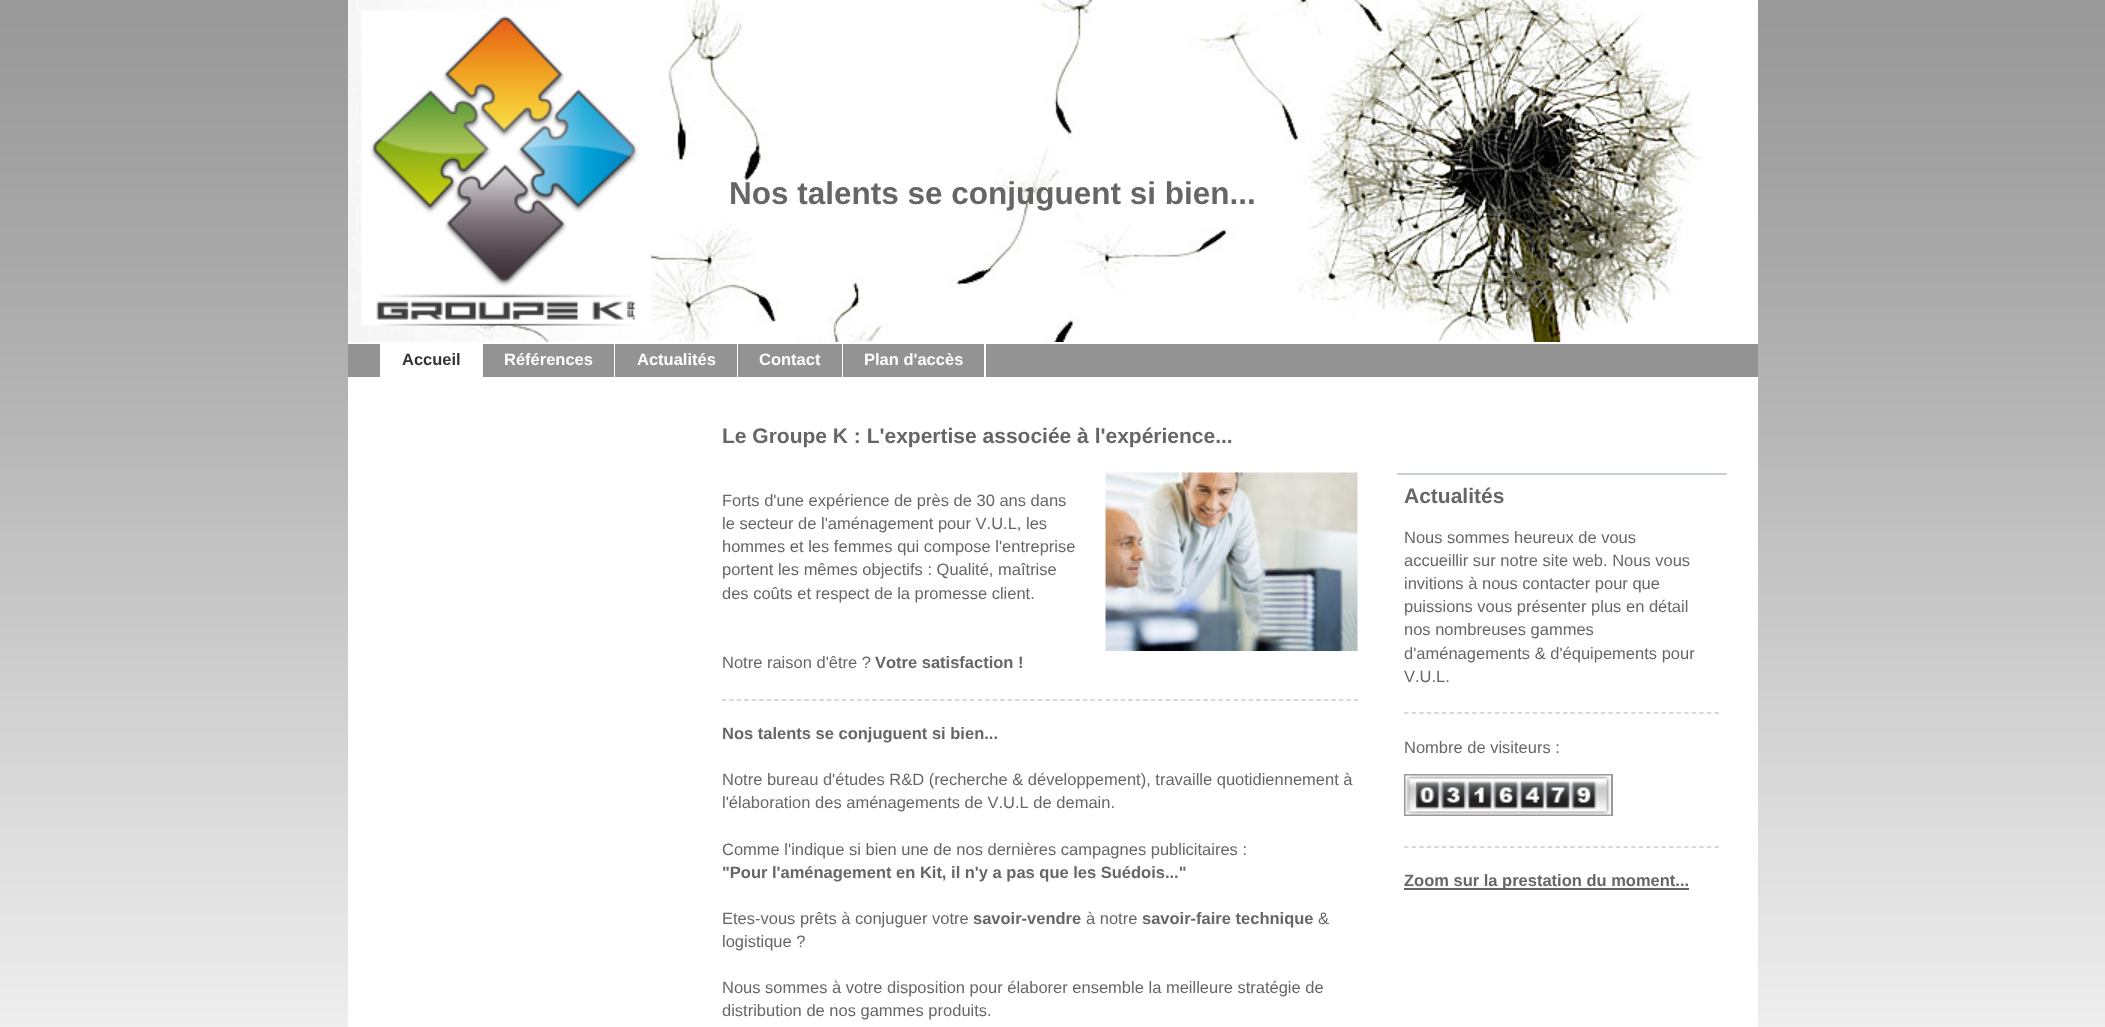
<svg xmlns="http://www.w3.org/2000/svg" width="2105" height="1027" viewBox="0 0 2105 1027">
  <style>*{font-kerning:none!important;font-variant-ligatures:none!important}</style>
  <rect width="100%" height="100%" fill="#fff"/>
  <image x="0" y="0" width="2105" height="1027" href="img/1.png"/>
  <path d="M348 342h1410v685H348z" fill="#fff"/>
  <image x="348" y="0" width="1410" height="342" href="img/2.png"/>
  <image x="361" y="10" width="290" height="316" href="img/3.png"/>
  <path d="M348 344h1410v33H348z" fill="#939393"/>
  <path d="M380 342h1v35H380z" fill="#fff"/>
  <path d="M381 344h101v33H381z" fill="#fff"/>
  <path d="M482 342h1v36H482z" fill="#fff"/>
  <path d="M614 342h1v36H614z" fill="#fff"/>
  <path d="M737 342h1v36H737z" fill="#fff"/>
  <path d="M842 342h1v36H842z" fill="#fff"/>
  <path d="M984 342h2v36H984z" fill="#fff"/>
  <image x="1105" y="472" width="253" height="179" href="img/4.png"/>
  <path d="M721.5 700H1359" fill="none" stroke="#ccc" stroke-width="1.5" stroke-dasharray="4.5 3.03"/>
  <path d="M1397 473h330v2H1397z" fill="#cad1d5"/>
  <path d="M1404 713H1719" fill="none" stroke="#ccc" stroke-width="1.5" stroke-dasharray="4.5 3.07"/>
  <path d="M1405 775h207v40H1405z" fill="none" stroke="#999" stroke-width="2"/>
  <image x="1405" y="775" width="10" height="40" href="img/5.png"/>
  <image x="1414" y="775" width="26" height="40" href="img/6.png"/>
  <image x="1440" y="775" width="27" height="40" href="img/7.png"/>
  <image x="1467" y="775" width="26" height="40" href="img/8.png"/>
  <image x="1492" y="775" width="28" height="40" href="img/9.png"/>
  <image x="1519" y="775" width="26" height="40" href="img/10.png"/>
  <image x="1545" y="775" width="26" height="40" href="img/11.png"/>
  <image x="1570" y="775" width="28" height="40" href="img/12.png"/>
  <image x="1597" y="775" width="14" height="40" href="img/13.png"/>
  <path d="M1404 847H1719" fill="none" stroke="#ccc" stroke-width="1.5" stroke-dasharray="4.5 3.07"/>
  <path d="M1404 888h285v2H1404z" fill="#666"/>
  <text x="729" y="204" font-family="Liberation Sans" font-size="31.5" font-weight="bold" fill="#666">Nos talents se conjuguent si bien...</text>
  <text x="402" y="365" font-family="Liberation Sans" font-size="16.5" font-weight="bold" fill="#333">Accueil</text>
  <g font-family="Liberation Sans" font-size="16.5" font-weight="bold" fill="#fff">
    <text x="504" y="365">Références</text>
    <text x="637" y="365">Actualités</text>
    <text x="759" y="365">Contact</text>
    <text x="864" y="365">Plan d'accès</text>
  </g>
  <text x="722" y="443" font-family="Liberation Sans" font-size="21" font-weight="bold" fill="#666">Le Groupe K : L'expertise associée à l'expérience...</text>
  <g font-family="Liberation Sans" font-size="16.5" fill="#666">
    <text x="722" y="506">Forts d'une expérience de près de 30 ans dans</text>
    <text x="722" y="529">le secteur de l'aménagement pour V.U.L, les</text>
    <text x="722" y="552">hommes et les femmes qui compose l'entreprise</text>
    <text x="722" y="575">portent les mêmes objectifs : Qualité, maîtrise</text>
    <text x="722" y="599">des coûts et respect de la promesse client.</text>
    <text x="722" y="668">Notre raison d'être ?</text>
  </g>
  <g font-family="Liberation Sans" font-size="16.5" font-weight="bold" fill="#666">
    <text x="875" y="668">Votre satisfaction !</text>
    <text x="722" y="739">Nos talents se conjuguent si bien...</text>
  </g>
  <g font-family="Liberation Sans" font-size="16.5" fill="#666">
    <text x="722" y="785">Notre bureau d'études R&amp;D (recherche &amp; développement), travaille quotidiennement à</text>
    <text x="722" y="808">l'élaboration des aménagements de V.U.L de demain.</text>
    <text x="722" y="855">Comme l'indique si bien une de nos dernières campagnes publicitaires :</text>
  </g>
  <text x="722" y="878" font-family="Liberation Sans" font-size="16.5" font-weight="bold" fill="#666">"Pour l'aménagement en Kit, il n'y a pas que les Suédois..."</text>
  <text x="722" y="924" font-family="Liberation Sans" font-size="16.5" fill="#666">Etes-vous prêts à conjuguer votre</text>
  <text x="973" y="924" font-family="Liberation Sans" font-size="16.5" font-weight="bold" fill="#666">savoir-vendre</text>
  <text x="1086" y="924" font-family="Liberation Sans" font-size="16.5" fill="#666">à notre</text>
  <text x="1142" y="924" font-family="Liberation Sans" font-size="16.5" font-weight="bold" fill="#666">savoir-faire technique</text>
  <g font-family="Liberation Sans" font-size="16.5" fill="#666">
    <text x="1318" y="924">&amp;</text>
    <text x="722" y="947">logistique ?</text>
    <text x="722" y="993">Nous sommes à votre disposition pour élaborer ensemble la meilleure stratégie de</text>
    <text x="722" y="1016">distribution de nos gammes produits.</text>
  </g>
  <text x="1404" y="503" font-family="Liberation Sans" font-size="21" font-weight="bold" fill="#666">Actualités</text>
  <g font-family="Liberation Sans" font-size="16.5" fill="#666">
    <text x="1404" y="543">Nous sommes heureux de vous</text>
    <text x="1404" y="566">accueillir sur notre site web. Nous vous</text>
    <text x="1404" y="589">invitions à nous contacter pour que</text>
    <text x="1404" y="612">puissions vous présenter plus en détail</text>
    <text x="1404" y="635">nos nombreuses gammes</text>
    <text x="1404" y="659">d'aménagements &amp; d'équipements pour</text>
    <text x="1404" y="682">V.U.L.</text>
    <text x="1404" y="753">Nombre de visiteurs :</text>
  </g>
  <text x="1404" y="886" font-family="Liberation Sans" font-size="16.5" font-weight="bold" fill="#666">Zoom sur la prestation du moment...</text>
</svg>
